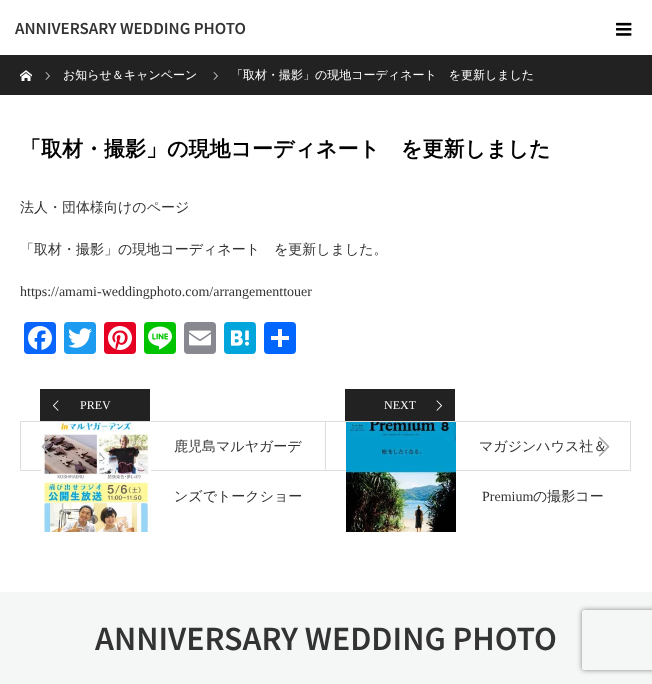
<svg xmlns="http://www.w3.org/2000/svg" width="652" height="684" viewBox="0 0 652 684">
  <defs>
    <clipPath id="clip1"><path d="M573 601H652V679H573ZM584 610H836C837 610 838 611 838 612V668C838 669 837 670 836 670H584C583 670 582 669 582 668V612C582 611 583 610 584 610Z" clip-rule="evenodd"/></clipPath>
  </defs>
  <rect width="100%" height="100%" fill="#fff"/>
  <image x="616" y="22" width="16" height="14" href="img/1.png"/>
  <path d="M0 55h652v40H0z" fill="#222"/>
  <image x="20" y="70" width="12" height="11" href="img/2.png"/>
  <image x="45" y="72" width="5" height="8" href="img/3.png"/>
  <image x="213" y="72" width="5" height="8" href="img/3.png"/>
  <rect x="24" y="322" width="32" height="32" rx="4" fill="#0866ff"/>
  <image x="28" y="326" width="24" height="24" href="img/4.png"/>
  <rect x="64" y="322" width="32" height="32" rx="4" fill="#1d9bf0"/>
  <image x="68" y="328" width="24" height="20" href="img/5.png"/>
  <rect x="104" y="322" width="32" height="32" rx="4" fill="#e60023"/>
  <image x="108" y="326" width="24" height="24" href="img/6.png"/>
  <rect x="144" y="322" width="32" height="32" rx="4" fill="#00c300"/>
  <image x="148" y="326" width="24" height="24" href="img/7.png"/>
  <rect x="184" y="322" width="32" height="32" rx="4" fill="#888990"/>
  <image x="189" y="330" width="22" height="16" href="img/8.png"/>
  <rect x="224" y="322" width="32" height="32" rx="4" fill="#00a6db"/>
  <image x="230" y="330" width="19" height="16" href="img/9.png"/>
  <rect x="264" y="322" width="32" height="32" rx="4" fill="#0166ff"/>
  <path d="M278 329h4v18H278z" fill="#fff"/>
  <path d="M271 336h18v4H271z" fill="#fff"/>
  <path d="M40 389h110v32H40z" fill="#222"/>
  <image x="53" y="400" width="6" height="11" href="img/10.png"/>
  <path d="M20.5 421.5h305v49H20.5z" fill="none" stroke="#ddd"/>
  <image x="41" y="422" width="110" height="110" href="img/11.png"/>
  <image x="41" y="436" width="12" height="21" href="img/12.png"/>
  <path d="M345 389h110v32H345z" fill="#222"/>
  <image x="436" y="400" width="6" height="11" href="img/13.png"/>
  <path d="M325.5 421.5h305v49H325.5z" fill="none" stroke="#ddd"/>
  <image x="346" y="422" width="110" height="110" href="img/14.png"/>
  <path d="M0 592h652v92H0z" fill="#f5f7f6"/>
  <g clip-path="url(#clip1)">
    <rect x="582" y="610" width="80" height="60" rx="2" fill="#808080" filter="blur(2.5px)"/>
  </g>
  <text x="15" y="34" font-family="Noto Sans JP" font-size="15" font-weight="600" fill="#333">ANNIVERSARY WEDDING PHOTO</text>
  <g font-family="WenQuanYi Zen Hei" font-size="12" font-weight="500" fill="#fff">
    <text x="63" y="79">お知らせ＆キャンペーン</text>
    <text x="231" y="79">「取材・撮影」の現地コーディネート　を更新しました</text>
  </g>
  <text x="20" y="156" font-family="WenQuanYi Zen Hei" font-size="21" font-weight="bold" fill="#000">「取材・撮影」の現地コーディネート　を更新しました</text>
  <g font-family="WenQuanYi Zen Hei" font-size="14" font-weight="500" fill="#333">
    <text x="20" y="212">法人・団体様向けのページ</text>
    <text x="20" y="254">「取材・撮影」の現地コーディネート　を更新しました。</text>
  </g>
  <text x="20" y="296" font-family="Liberation Serif" font-size="14" fill="#333">https://amami-weddingphoto.com/arrangementtouer</text>
  <text x="80" y="409" font-family="Liberation Serif" font-size="12" fill="#fff">PREV</text>
  <g font-family="WenQuanYi Zen Hei" font-size="14" font-weight="500" fill="#333">
    <text x="174" y="451">鹿児島マルヤガーデ</text>
    <text x="174" y="501">ンズでトークショー</text>
  </g>
  <text x="384" y="409" font-family="Liberation Serif" font-size="12" fill="#fff">NEXT</text>
  <text x="479" y="451" font-family="WenQuanYi Zen Hei" font-size="14" font-weight="500" fill="#333">マガジンハウス社＆</text>
  <image x="598" y="436" width="12" height="21" href="img/15.png"/>
  <text x="482" y="501" font-family="Liberation Serif" font-size="14" fill="#333">Premium</text>
  <text x="533" y="501" font-family="WenQuanYi Zen Hei" font-size="14" font-weight="500" fill="#333">の撮影コー</text>
  <text x="95" y="650" font-family="Noto Sans JP" font-size="30" font-weight="600" fill="#333">ANNIVERSARY WEDDING PHOTO</text>
</svg>
